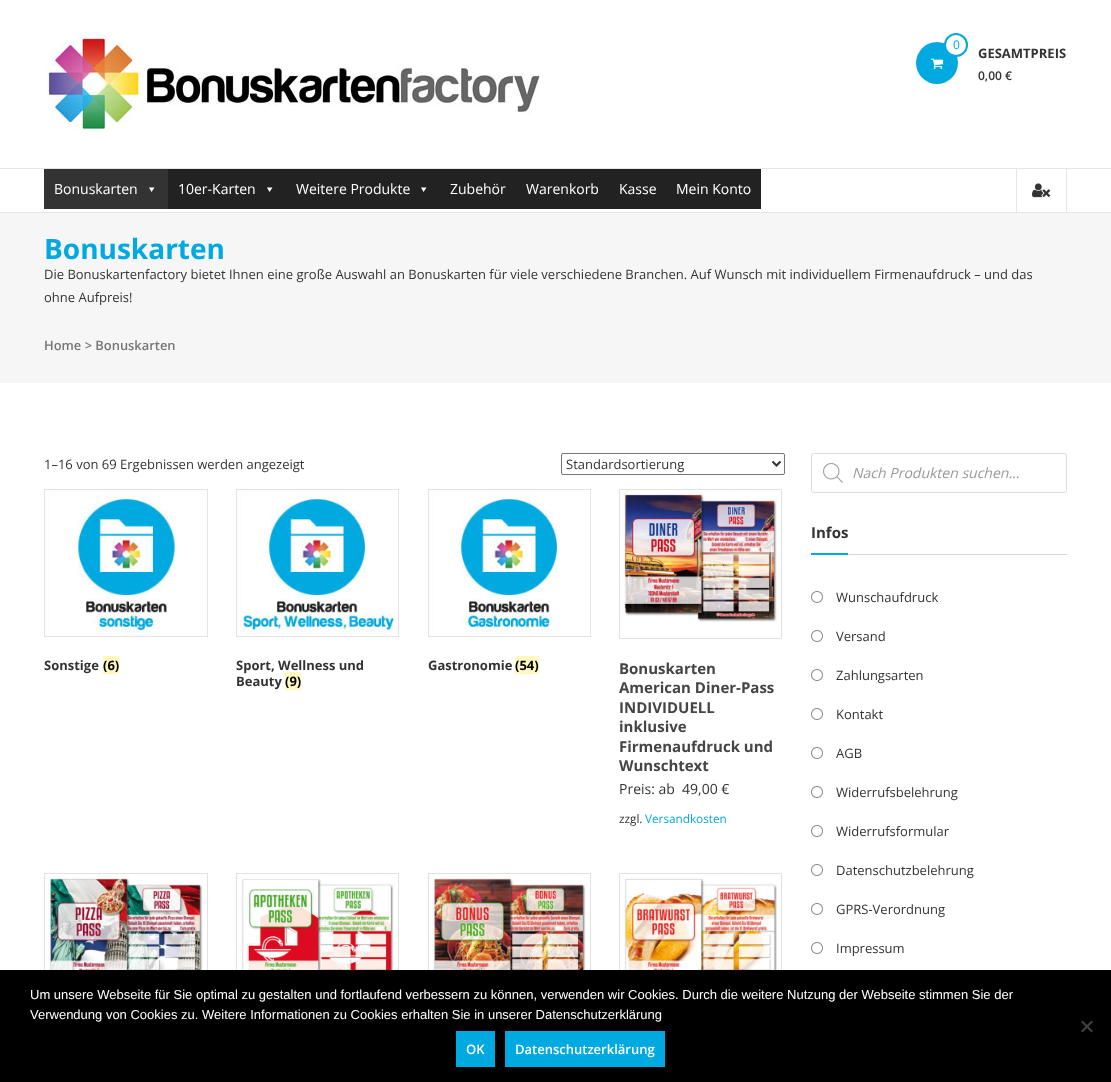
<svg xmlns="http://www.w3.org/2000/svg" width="1111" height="1082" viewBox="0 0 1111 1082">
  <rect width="100%" height="100%" fill="#fff"/>
  <image x="44" y="34" width="496" height="96" href="img/1.png"/>
  <circle cx="937" cy="63" r="21" fill="#00a9e0"/>
  <circle cx="956" cy="45" r="11" fill="#fff" stroke="#00a9e0" stroke-width="2"/>
  <image x="931" y="58" width="13" height="11" href="img/2.png"/>
  <path d="M0 168h1111v1H0z" fill="#e5e5e5"/>
  <path d="M0 212h1111v1H0z" fill="#e5e5e5"/>
  <path d="M168 169h593v40H168z" fill="#222"/>
  <path d="M44 169h124v40H44z" fill="#333"/>
  <path d="M154.5 187.5L151.5 192L149 187.5Z" fill="#fff"/>
  <path d="M272.5 187.5L269.5 192L267 187.5Z" fill="#fff"/>
  <path d="M426.5 187.5L423.5 192L421 187.5Z" fill="#fff"/>
  <path d="M1066 169h1v43H1066z" fill="#e5e5e5"/>
  <path d="M1016 169h1v43H1016z" fill="#e5e5e5"/>
  <image x="1032" y="183" width="19" height="15" href="img/3.png"/>
  <path d="M0 213h1111v170H0z" fill="#f6f6f6"/>
  <rect x="561.5" y="453.5" width="223" height="21" rx="1.5" fill="none" stroke="#767676"/>
  <path d="M772.5 461.5L776.5 465.5L780.5 461.5" fill="none" stroke="#333" stroke-width="2"/>
  <image x="44" y="489" width="164" height="148" href="img/4.png"/>
  <path d="M103 656h16v18H103z" fill="#fff9c0"/>
  <image x="236" y="489" width="163" height="148" href="img/5.png"/>
  <image x="428" y="489" width="163" height="148" href="img/6.png"/>
  <path d="M515 656h24v18H515z" fill="#fff9c0"/>
  <path d="M619.5 489.5h162v149H619.5z" fill="none" stroke="#e1e1e1"/>
  <image x="623" y="493" width="154" height="129" href="img/7.png"/>
  <path d="M44.5 873.5h163v149H44.5z" fill="none" stroke="#e1e1e1"/>
  <image x="48" y="877" width="155" height="93" href="img/8.png"/>
  <path d="M236.5 873.5h162v149H236.5z" fill="none" stroke="#e1e1e1"/>
  <image x="241" y="878" width="153" height="92" href="img/9.png"/>
  <path d="M428.5 873.5h162v149H428.5z" fill="none" stroke="#e1e1e1"/>
  <image x="432" y="878" width="154" height="92" href="img/10.png"/>
  <path d="M619.5 873.5h162v149H619.5z" fill="none" stroke="#e1e1e1"/>
  <image x="623" y="878" width="154" height="92" href="img/11.png"/>
  <rect x="811.5" y="453.5" width="255" height="39" rx="2.5" fill="none" stroke="#ddd"/>
  <image x="823" y="463" width="20" height="20" href="img/12.png"/>
  <path d="M848 554h219v1H848z" fill="#d6d6d6"/>
  <path d="M811 553h37v2H811z" fill="#00a9e0"/>
  <image x="811" y="591" width="12" height="12" href="img/13.png"/>
  <image x="811" y="630" width="12" height="12" href="img/13.png"/>
  <image x="811" y="669" width="12" height="12" href="img/13.png"/>
  <image x="811" y="708" width="12" height="12" href="img/13.png"/>
  <image x="811" y="747" width="12" height="12" href="img/13.png"/>
  <image x="811" y="786" width="12" height="12" href="img/13.png"/>
  <image x="811" y="825" width="12" height="12" href="img/13.png"/>
  <image x="811" y="864" width="12" height="12" href="img/13.png"/>
  <image x="811" y="903" width="12" height="12" href="img/13.png"/>
  <image x="811" y="942" width="12" height="12" href="img/13.png"/>
  <path d="M0 970h1111v112H0z" fill="#000"/>
  <path d="M1091.5 1020.5L1093 1022L1082.5 1032.5L1081 1031Z" fill="#404040"/>
  <path d="M1081 1022L1082.5 1020.5L1093 1031L1091.5 1032.5Z" fill="#404040"/>
  <path d="M456 1031h39v36H456z" fill="#00a9e0"/>
  <path d="M505 1031h160v36H505z" fill="#00a9e0"/>
  <text x="953" y="49" font-family="Open Sans" font-size="12" fill="#00a9e0">0</text>
  <text x="978" y="58" font-family="Open Sans" font-size="13" font-weight="bold" fill="#333">GESAMTPREIS</text>
  <text x="978" y="80" font-family="Open Sans" font-size="12" font-weight="600" fill="#333">0,00 €</text>
  <g font-family="Open Sans" font-size="14" fill="#fff">
    <text x="54" y="194">Bonuskarten</text>
    <text x="178" y="194">10er-Karten</text>
    <text x="296" y="194">Weitere Produkte</text>
    <text x="450" y="194">Zubehör</text>
    <text x="526" y="194">Warenkorb</text>
    <text x="619" y="194">Kasse</text>
    <text x="676" y="194">Mein Konto</text>
  </g>
  <text x="44" y="259" font-family="Open Sans" font-size="28" font-weight="bold" fill="#00a9e0">Bonuskarten</text>
  <g font-family="Open Sans" font-size="13" fill="#333">
    <text x="44" y="279">Die Bonuskartenfactory bietet Ihnen eine große Auswahl an Bonuskarten für viele verschiedene Branchen. Auf Wunsch mit individuellem Firmenaufdruck – und das</text>
    <text x="44" y="302">ohne Aufpreis!</text>
  </g>
  <text x="44" y="350" font-family="Open Sans" font-size="12.9" font-weight="600" fill="#767676">Home &gt; Bonuskarten</text>
  <g font-family="Open Sans" font-size="13" fill="#333">
    <text x="44" y="469">1–16 von 69 Ergebnissen werden angezeigt</text>
    <text x="566" y="469">Standardsortierung</text>
  </g>
  <text x="44" y="670" font-family="Open Sans" font-size="13" font-weight="bold" fill="#333">Sonstige</text>
  <text x="103" y="670" font-family="Open Sans" font-size="13" font-weight="bold" fill="#000">(6)</text>
  <g font-family="Open Sans" font-size="13" font-weight="bold" fill="#333">
    <text x="236" y="670">Sport, Wellness und</text>
    <text x="236" y="686">Beauty</text>
  </g>
  <path d="M285 672h16v18H285z" fill="#fff9c0"/>
  <text x="285" y="686" font-family="Open Sans" font-size="13" font-weight="bold" fill="#000">(9)</text>
  <text x="428" y="670" font-family="Open Sans" font-size="13" font-weight="bold" fill="#333">Gastronomie</text>
  <text x="515" y="670" font-family="Open Sans" font-size="13" font-weight="bold" fill="#000">(54)</text>
  <g font-family="Open Sans" font-size="15" font-weight="bold" fill="#454545">
    <text x="619" y="674">Bonuskarten</text>
    <text x="619" y="693">American Diner-Pass</text>
    <text x="619" y="713">INDIVIDUELL</text>
    <text x="619" y="732">inklusive</text>
    <text x="619" y="752">Firmenaufdruck und</text>
    <text x="619" y="771">Wunschtext</text>
  </g>
  <g font-family="Open Sans" font-size="14" fill="#333">
    <text x="619" y="794">Preis: ab</text>
    <text x="682" y="794">49,00 €</text>
  </g>
  <text x="619" y="823" font-family="Open Sans" font-size="11.75" fill="#333">zzgl.</text>
  <text x="645" y="823" font-family="Open Sans" font-size="11.75" fill="#00a9e0">Versandkosten</text>
  <text x="852" y="478" font-family="Open Sans" font-size="14" font-style="italic" fill="#999">Nach Produkten suchen...</text>
  <text x="811" y="538" font-family="Open Sans" font-size="15" font-weight="bold" fill="#333">Infos</text>
  <g font-family="Open Sans" font-size="13" fill="#333">
    <text x="836" y="602">Wunschaufdruck</text>
    <text x="836" y="641">Versand</text>
    <text x="836" y="680">Zahlungsarten</text>
    <text x="836" y="719">Kontakt</text>
    <text x="836" y="758">AGB</text>
    <text x="836" y="797">Widerrufsbelehrung</text>
    <text x="836" y="836">Widerrufsformular</text>
    <text x="836" y="875">Datenschutzbelehrung</text>
    <text x="836" y="914">GPRS-Verordnung</text>
    <text x="836" y="953">Impressum</text>
  </g>
  <g font-family="Liberation Sans" font-size="13" fill="#fff">
    <text x="30" y="999">Um unsere Webseite für Sie optimal zu gestalten und fortlaufend verbessern zu können, verwenden wir Cookies. Durch die weitere Nutzung der Webseite stimmen Sie der</text>
    <text x="30" y="1019">Verwendung von Cookies zu. Weitere Informationen zu Cookies erhalten Sie in unserer Datenschutzerklärung</text>
  </g>
  <g font-family="Open Sans" font-size="13" font-weight="600" fill="#fff">
    <text x="466" y="1054">OK</text>
    <text x="515" y="1054">Datenschutzerklärung</text>
  </g>
</svg>
